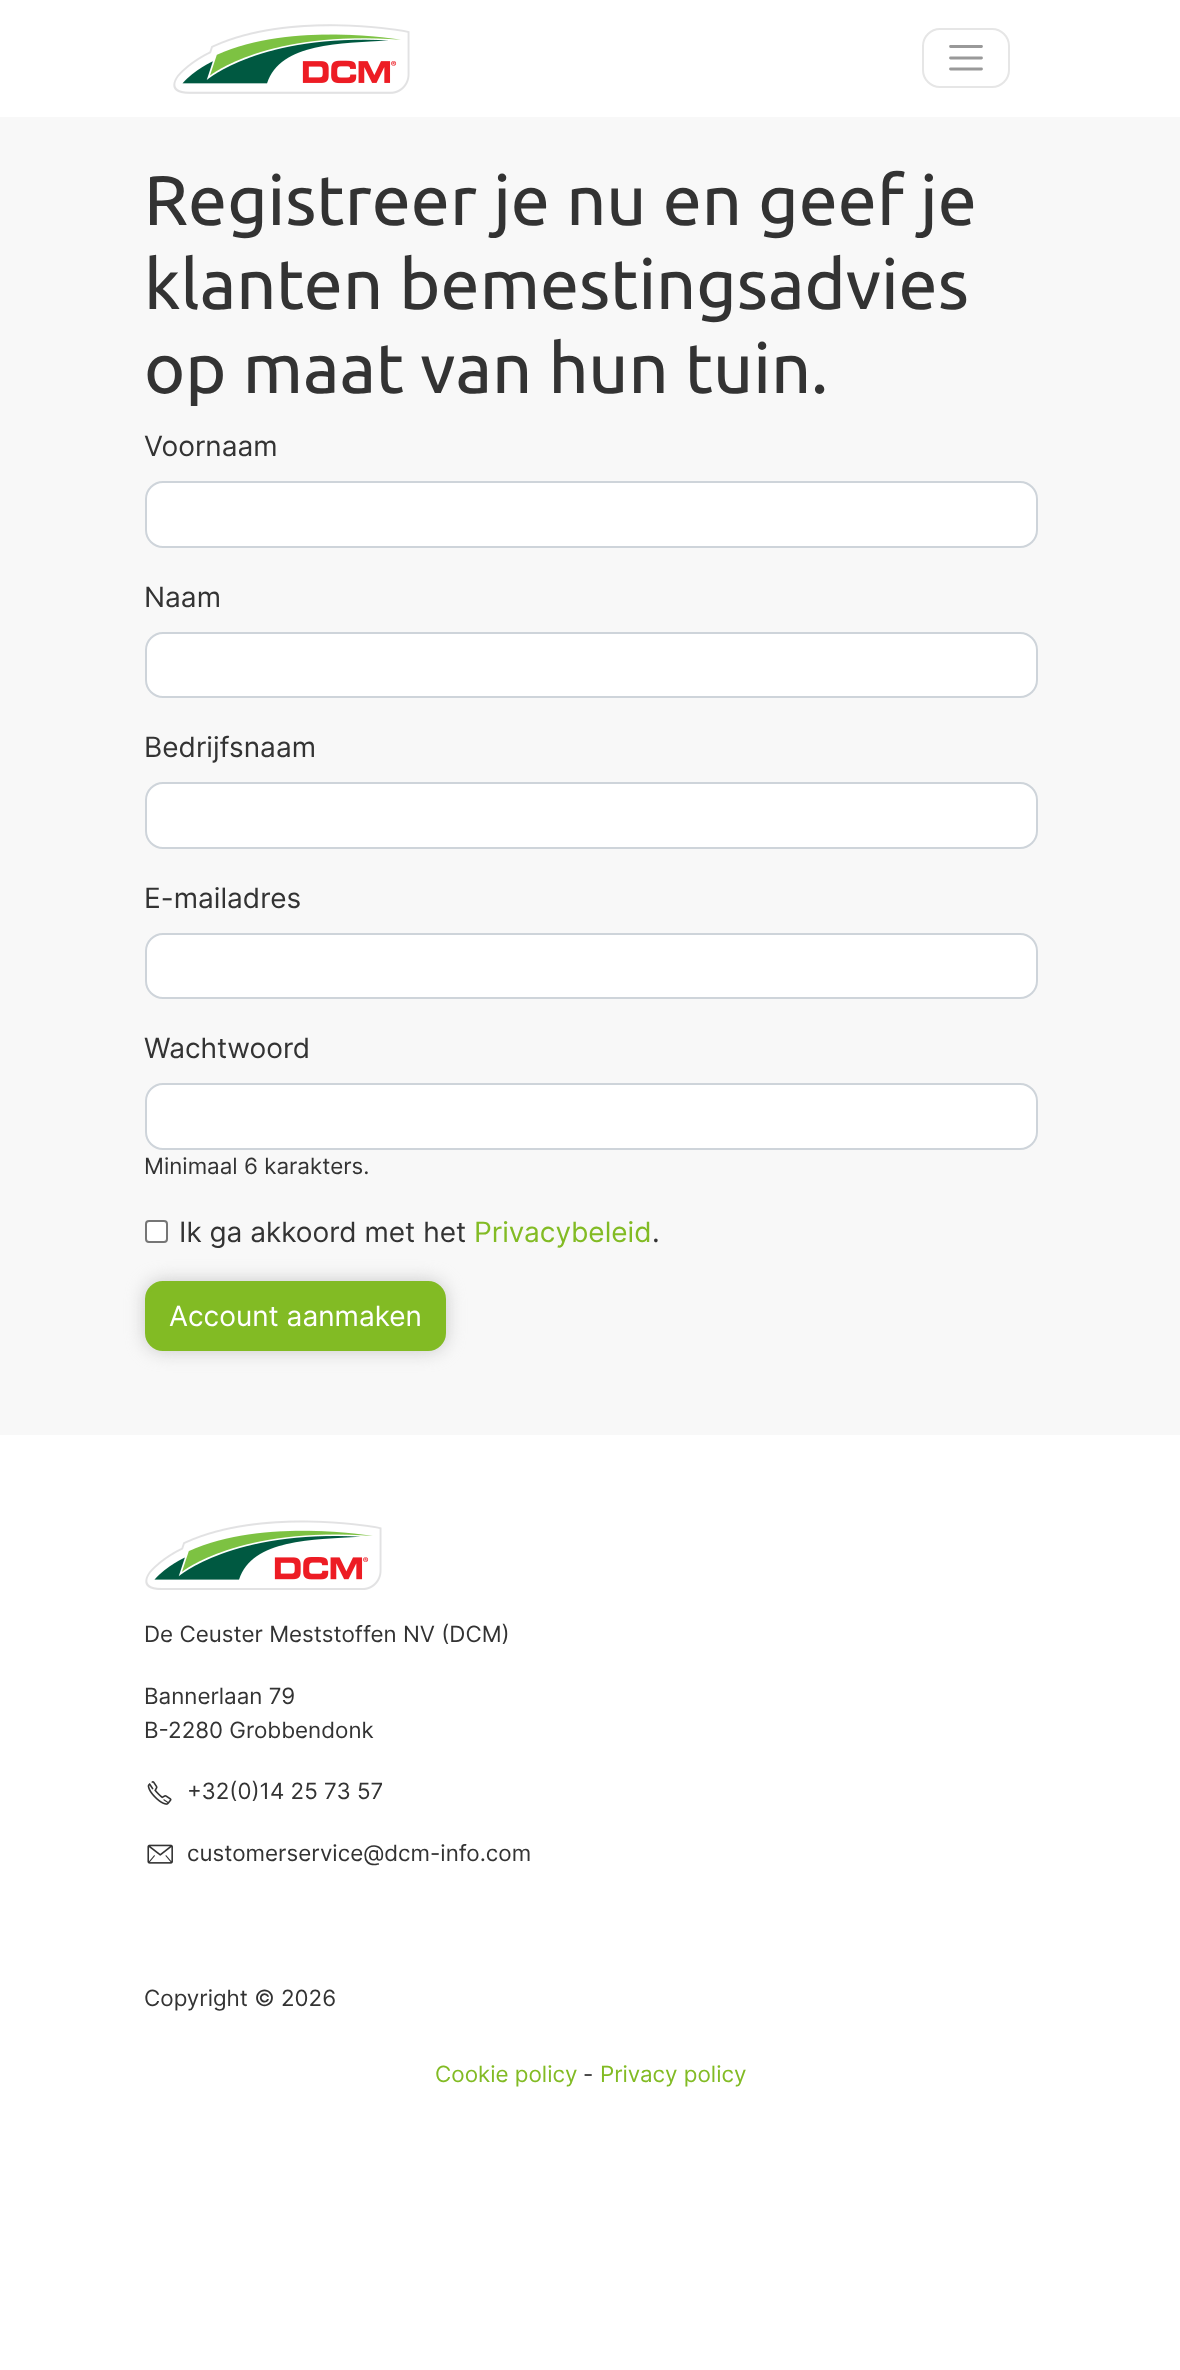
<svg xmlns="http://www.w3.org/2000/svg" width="1180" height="2370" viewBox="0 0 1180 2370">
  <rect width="100%" height="100%" fill="#fff"/>
  <image x="173" y="24" width="237" height="70" href="img/1.png"/>
  <rect x="923" y="29" width="86" height="58" rx="17" fill="none" stroke="#e6e6e6" stroke-width="2"/>
  <path d="M950.5 46.5H981.5M950.5 58H981.5M950.5 69H981.5" fill="none" stroke="#999" stroke-width="2.8" stroke-linecap="round"/>
  <path d="M0 117h1180v1318H0z" fill="#f8f8f8"/>
  <rect x="146" y="482" width="891" height="65" rx="17" fill="#fff" stroke="#ced4da" stroke-width="2"/>
  <rect x="146" y="633" width="891" height="64" rx="17" fill="#fff" stroke="#ced4da" stroke-width="2"/>
  <rect x="146" y="783" width="891" height="65" rx="17" fill="#fff" stroke="#ced4da" stroke-width="2"/>
  <rect x="146" y="934" width="891" height="64" rx="17" fill="#fff" stroke="#ced4da" stroke-width="2"/>
  <rect x="146" y="1084" width="891" height="65" rx="17" fill="#fff" stroke="#ced4da" stroke-width="2"/>
  <rect x="146" y="1221" width="21" height="21" rx="3" fill="#fff" stroke="#767676" stroke-width="2"/>
  <rect x="145" y="1281" width="301" height="70" rx="18" fill="#c8c8c8" filter="blur(9px)"/>
  <rect x="147" y="1283" width="297" height="66" rx="16" fill="#82bb24" stroke="#82bb24" stroke-width="4"/>
  <image x="145" y="1520" width="237" height="70" href="img/2.png"/>
  <image x="147" y="1781" width="25" height="24" href="img/3.png"/>
  <image x="147" y="1844" width="26" height="20" href="img/4.png"/>
  <g font-family="Ubuntu" font-size="70" fill="#333">
    <text x="144" y="225">Registreer je nu en geef je</text>
    <text x="144" y="309">klanten bemestingsadvies</text>
    <text x="144" y="393">op maat van hun tuin.</text>
  </g>
  <g font-family="Inter" font-size="28" fill="#333">
    <text x="144" y="456">Voornaam</text>
    <text x="144" y="607">Naam</text>
    <text x="144" y="757">Bedrijfsnaam</text>
    <text x="144" y="908">E-mailadres</text>
    <text x="144" y="1058">Wachtwoord</text>
  </g>
  <text x="144" y="1174" font-family="Inter" font-size="22.4" fill="#333">Minimaal 6 karakters.</text>
  <text x="179" y="1242" font-family="Inter" font-size="28" fill="#333">Ik ga akkoord met het</text>
  <text x="474" y="1242" font-family="Inter" font-size="28" fill="#82bb24">Privacybeleid</text>
  <text x="652" y="1242" font-family="Inter" font-size="28" fill="#333">.</text>
  <text x="169" y="1326" font-family="Inter" font-size="28" fill="#fff">Account aanmaken</text>
  <g font-family="Inter" font-size="22.4" fill="#333">
    <text x="144" y="1642">De Ceuster Meststoffen NV (DCM)</text>
    <text x="144" y="1704">Bannerlaan 79</text>
    <text x="144" y="1738">B-2280 Grobbendonk</text>
    <text x="187" y="1799">+32(0)14 25 73 57</text>
    <text x="187" y="1861">customerservice@dcm-info.com</text>
    <text x="144" y="2006">Copyright © 2026</text>
  </g>
  <text x="435" y="2082" font-family="Inter" font-size="22.4" fill="#82bb24">Cookie policy</text>
  <text x="583" y="2082" font-family="Inter" font-size="22.4" fill="#333">-</text>
  <text x="600" y="2082" font-family="Inter" font-size="22.4" fill="#82bb24">Privacy policy</text>
</svg>
